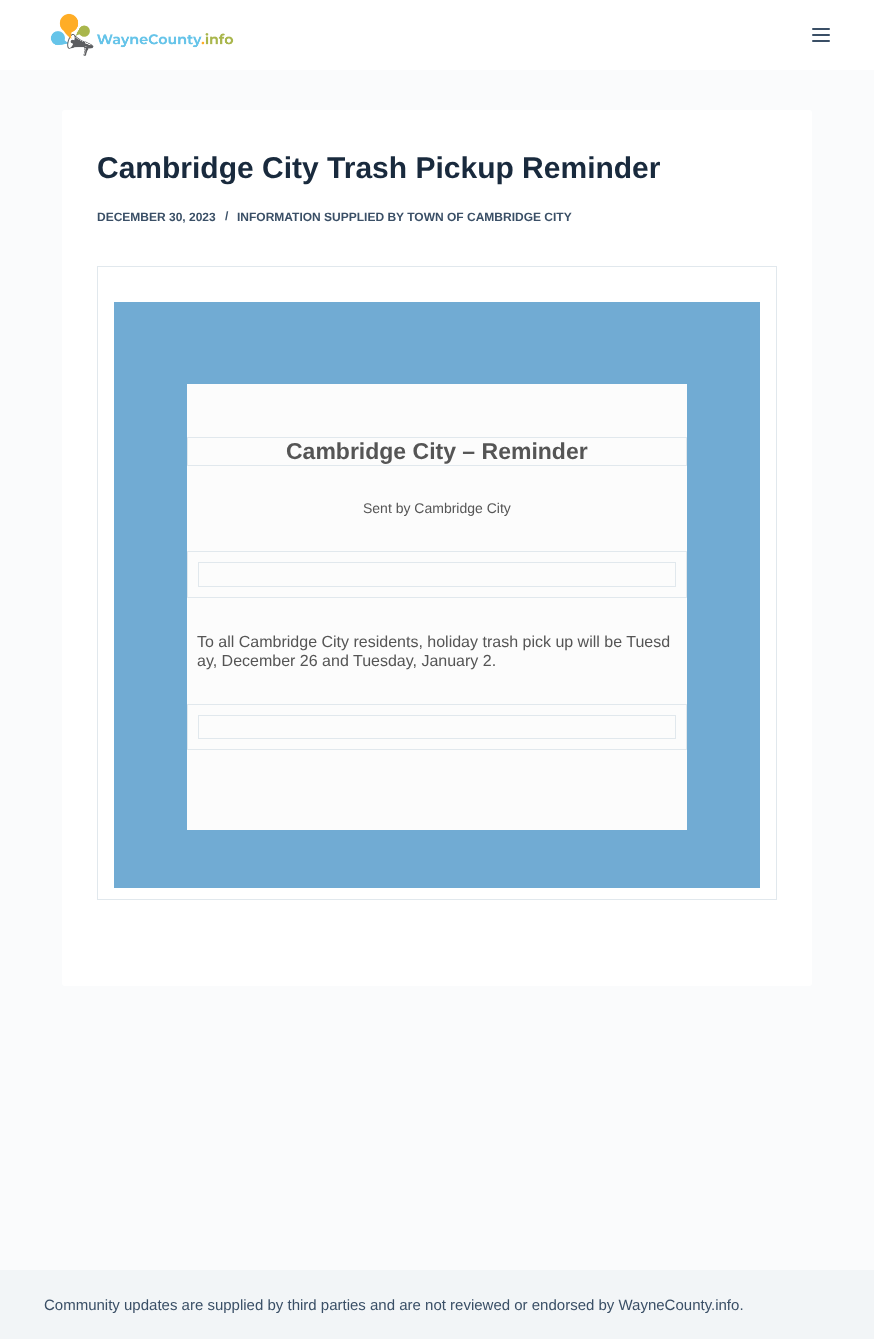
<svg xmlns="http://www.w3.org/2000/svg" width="874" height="1339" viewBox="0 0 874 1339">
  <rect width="100%" height="100%" fill="#fafbfc"/>
  <path d="M0 0h874v70H0z" fill="#fff"/>
  <image x="50" y="13" width="184" height="43" href="img/1.png"/>
  <rect x="812" y="28" width="18" height="2" rx="1" fill="#3a4f66"/>
  <rect x="812" y="34" width="18" height="2" rx="1" fill="#3a4f66"/>
  <rect x="812" y="40" width="18" height="2" rx="1" fill="#3a4f66"/>
  <rect x="62" y="110" width="750" height="876" rx="3" fill="#fff"/>
  <path d="M97 266h680v1H97z" fill="#e1e8ed"/>
  <path d="M776 266h1v634H776z" fill="#e1e8ed"/>
  <path d="M97 899h680v1H97z" fill="#e1e8ed"/>
  <path d="M97 266h1v634H97z" fill="#e1e8ed"/>
  <path d="M114 302h646v586H114z" fill="#71abd3"/>
  <path d="M187 384h500v446H187z" fill="#fcfcfc"/>
  <path d="M187 437h500v1H187z" fill="#e1e8ed"/>
  <path d="M686 437h1v29H686z" fill="#e1e8ed"/>
  <path d="M187 465h500v1H187z" fill="#e1e8ed"/>
  <path d="M187 437h1v29H187z" fill="#e1e8ed"/>
  <path d="M187 551h500v1H187z" fill="#e1e8ed"/>
  <path d="M686 551h1v47H686z" fill="#e1e8ed"/>
  <path d="M187 597h500v1H187z" fill="#e1e8ed"/>
  <path d="M187 551h1v47H187z" fill="#e1e8ed"/>
  <path d="M675 562h1v25H675z" fill="#e1e8ed"/>
  <path d="M198 586h478v1H198z" fill="#e1e8ed"/>
  <path d="M198 562h1v25H198z" fill="#e1e8ed"/>
  <path d="M198 562h478v1H198z" fill="#e1e8ed"/>
  <path d="M187 704h500v1H187z" fill="#e1e8ed"/>
  <path d="M686 704h1v46H686z" fill="#e1e8ed"/>
  <path d="M187 749h500v1H187z" fill="#e1e8ed"/>
  <path d="M187 704h1v46H187z" fill="#e1e8ed"/>
  <path d="M675 715h1v24H675z" fill="#e1e8ed"/>
  <path d="M198 738h478v1H198z" fill="#e1e8ed"/>
  <path d="M198 715h1v24H198z" fill="#e1e8ed"/>
  <path d="M198 715h478v1H198z" fill="#e1e8ed"/>
  <path d="M0 1270h874v69H0z" fill="#f2f5f7"/>
  <text x="97" y="178" font-family="Liberation Sans" font-size="30" font-weight="bold" fill="#192a3d">Cambridge City Trash Pickup Reminder</text>
  <g font-family="Liberation Sans" font-size="12" font-weight="bold" fill="#3a4f66">
    <text x="97" y="221">DECEMBER 30, 2023</text>
    <text x="225" y="220">/</text>
    <text x="237" y="221">INFORMATION SUPPLIED BY TOWN OF CAMBRIDGE CITY</text>
  </g>
  <text x="286" y="459" font-family="Liberation Sans" font-size="23" font-weight="bold" fill="#555">Cambridge City – Reminder</text>
  <text x="363" y="513" font-family="Liberation Sans" font-size="14" fill="#555">Sent by Cambridge City</text>
  <g font-family="Liberation Sans" font-size="16" fill="#555">
    <text x="197" y="647">To all Cambridge City residents, holiday trash pick up will be Tuesd</text>
    <text x="197" y="666">ay, December 26 and Tuesday, January 2.</text>
  </g>
  <text x="44" y="1310" font-family="Liberation Sans" font-size="15" fill="#3a4f66">Community updates are supplied by third parties and are not reviewed or endorsed by WayneCounty.info.</text>
</svg>
